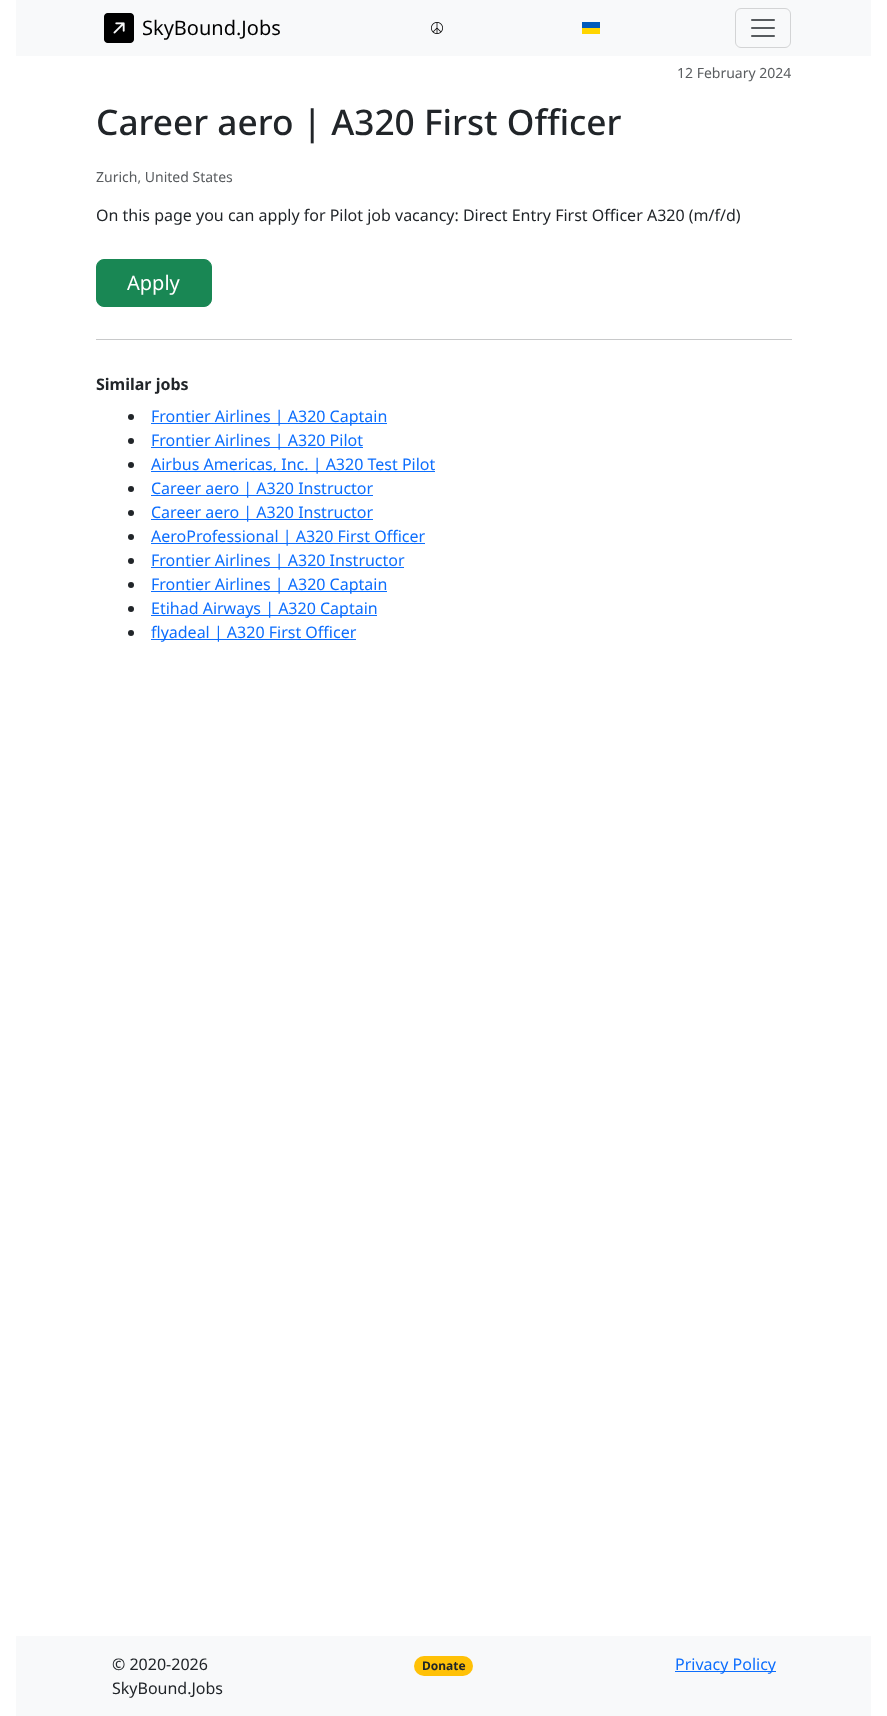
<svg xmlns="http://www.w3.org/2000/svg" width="887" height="1716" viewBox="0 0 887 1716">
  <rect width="100%" height="100%" fill="#fff"/>
  <path d="M16 0h855v56H16z" fill="#f8f9fa"/>
  <image x="104" y="13" width="30" height="30" href="img/1.png"/>
  <image x="431" y="22" width="12" height="12" href="img/2.png"/>
  <path d="M582 22h18v6H582z" fill="#005bbb"/>
  <path d="M582 28h18v6H582z" fill="#ffd500"/>
  <rect x="735.5" y="8.5" width="55" height="39" rx="5.5" fill="none" stroke="#d3d4d5"/>
  <image x="751" y="19" width="24" height="18" href="img/3.png"/>
  <rect x="96.5" y="259.5" width="115" height="47" rx="7.5" fill="#198754" stroke="#198754"/>
  <path d="M96 339h696v1H96z" fill="#c8c9ca"/>
  <circle cx="131" cy="417" r="3" fill="#212529"/>
  <path d="M151 423h236v1H151z" fill="#0d6efd"/>
  <circle cx="131" cy="441" r="3" fill="#212529"/>
  <path d="M151 447h212v1H151z" fill="#0d6efd"/>
  <circle cx="131" cy="465" r="3" fill="#212529"/>
  <path d="M151 471h284v1H151z" fill="#0d6efd"/>
  <circle cx="131" cy="489" r="3" fill="#212529"/>
  <path d="M151 495h222v1H151z" fill="#0d6efd"/>
  <circle cx="131" cy="513" r="3" fill="#212529"/>
  <path d="M151 519h222v1H151z" fill="#0d6efd"/>
  <circle cx="131" cy="537" r="3" fill="#212529"/>
  <path d="M151 543h274v1H151z" fill="#0d6efd"/>
  <circle cx="131" cy="561" r="3" fill="#212529"/>
  <path d="M151 567h253v1H151z" fill="#0d6efd"/>
  <circle cx="131" cy="585" r="3" fill="#212529"/>
  <path d="M151 591h236v1H151z" fill="#0d6efd"/>
  <circle cx="131" cy="609" r="3" fill="#212529"/>
  <path d="M151 615h226v1H151z" fill="#0d6efd"/>
  <circle cx="131" cy="633" r="3" fill="#212529"/>
  <path d="M151 639h205v1H151z" fill="#0d6efd"/>
  <path d="M16 1636h855v80H16z" fill="#f8f9fa"/>
  <rect x="414" y="1656" width="59" height="20" rx="10" fill="#ffc107"/>
  <path d="M675 1671h101v1H675z" fill="#0d6efd"/>
  <text x="142" y="35" font-family="Noto Sans" font-size="20" fill="#000">SkyBound.Jobs</text>
  <text x="677" y="78" font-family="Noto Sans" font-size="14" fill="#595c5f">12 February 2024</text>
  <text x="96" y="135" font-family="Noto Sans" font-size="35.25" font-weight="500" fill="#212529">Career aero | A320 First Officer</text>
  <text x="96" y="182" font-family="Noto Sans" font-size="14" fill="#595c5f">Zurich, United States</text>
  <text x="96" y="221" font-family="Noto Sans" font-size="16" fill="#212529">On this page you can apply for Pilot job vacancy: Direct Entry First Officer A320 (m/f/d)</text>
  <text x="127" y="290" font-family="Noto Sans" font-size="20" fill="#fff">Apply</text>
  <text x="96" y="390" font-family="Noto Sans" font-size="16" font-weight="bold" fill="#212529">Similar jobs</text>
  <g font-family="Noto Sans" font-size="16" fill="#0d6efd">
    <text x="151" y="422">Frontier Airlines | A320 Captain</text>
    <text x="151" y="446">Frontier Airlines | A320 Pilot</text>
    <text x="151" y="470">Airbus Americas, Inc. | A320 Test Pilot</text>
    <text x="151" y="494">Career aero | A320 Instructor</text>
    <text x="151" y="518">Career aero | A320 Instructor</text>
    <text x="151" y="542">AeroProfessional | A320 First Officer</text>
    <text x="151" y="566">Frontier Airlines | A320 Instructor</text>
    <text x="151" y="590">Frontier Airlines | A320 Captain</text>
    <text x="151" y="614">Etihad Airways | A320 Captain</text>
    <text x="151" y="638">flyadeal | A320 First Officer</text>
  </g>
  <g font-family="Noto Sans" font-size="16" fill="#212529">
    <text x="112" y="1670">© 2020-2026</text>
    <text x="112" y="1694">SkyBound.Jobs</text>
  </g>
  <text x="422" y="1670" font-family="Noto Sans" font-size="12" font-weight="bold" fill="#212529">Donate</text>
  <text x="675" y="1670" font-family="Noto Sans" font-size="16" fill="#0d6efd">Privacy Policy</text>
</svg>
